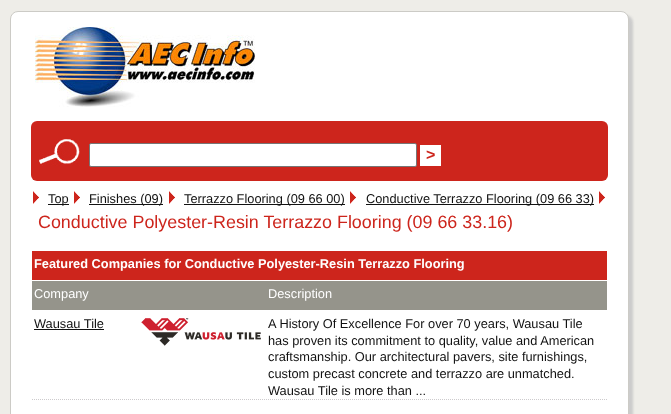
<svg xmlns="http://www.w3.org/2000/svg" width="671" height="414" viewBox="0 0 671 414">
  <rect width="100%" height="100%" fill="#eeede8"/>
  <rect x="14" y="15" width="619" height="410" rx="8" fill="#ccc" filter="blur(1px)"/>
  <rect x="10.5" y="11.5" width="618" height="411" rx="7.5" fill="#fff" stroke="#cccbc6"/>
  <image x="35" y="27" width="220" height="80" href="img/1.png"/>
  <rect x="31" y="121" width="577" height="60" rx="6" fill="#cd251c"/>
  <image x="39" y="139" width="41" height="27" href="img/2.png"/>
  <rect x="89.5" y="143.5" width="327" height="23" rx="1.5" fill="#fff" stroke="#767676"/>
  <path d="M420 145h21v21H420z" fill="#fff"/>
  <image x="33" y="191" width="6" height="13" href="img/3.png"/>
  <path d="M48 204h21v1H48z" fill="#111"/>
  <image x="74" y="191" width="6" height="13" href="img/3.png"/>
  <path d="M89 204h74v1H89z" fill="#111"/>
  <image x="169" y="191" width="6" height="13" href="img/3.png"/>
  <path d="M184 204h161v1H184z" fill="#111"/>
  <image x="350" y="191" width="6" height="13" href="img/3.png"/>
  <path d="M366 204h228v1H366z" fill="#111"/>
  <image x="599" y="191" width="6" height="13" href="img/3.png"/>
  <path d="M32 251h575v29H32z" fill="#cd251c"/>
  <path d="M32 281h575v29H32z" fill="#95948b"/>
  <path d="M32 399.5H265" fill="none" stroke="#cdcbcd" stroke-dasharray="1 1"/>
  <path d="M34 329h70v1H34z" fill="#111"/>
  <image x="141" y="318" width="120" height="28" href="img/4.png"/>
  <path d="M266 399.5H607" fill="none" stroke="#cdcbcd" stroke-dasharray="1 1"/>
  <text x="426" y="160" font-family="Liberation Sans" font-size="16" font-weight="bold" fill="#cd251c">&gt;</text>
  <g font-family="Liberation Sans" font-size="12.8" fill="#111">
    <text x="48" y="203">Top</text>
    <text x="89" y="203">Finishes (09)</text>
    <text x="184" y="203">Terrazzo Flooring (09 66 00)</text>
    <text x="366" y="203">Conductive Terrazzo Flooring (09 66 33)</text>
  </g>
  <text x="38" y="228" font-family="Liberation Sans" font-size="17.9" fill="#cd251c">Conductive Polyester-Resin Terrazzo Flooring (09 66 33.16)</text>
  <text x="34" y="268" font-family="Liberation Sans" font-size="12.8" font-weight="bold" fill="#fff">Featured Companies for Conductive Polyester-Resin Terrazzo Flooring</text>
  <g font-family="Liberation Sans" font-size="12.8" fill="#fff">
    <text x="34" y="298">Company</text>
    <text x="268" y="298">Description</text>
  </g>
  <g font-family="Liberation Sans" font-size="12.8" fill="#111">
    <text x="34" y="328">Wausau Tile</text>
    <text x="268" y="328">A History Of Excellence For over 70 years, Wausau Tile</text>
    <text x="268" y="345">has proven its commitment to quality, value and American</text>
    <text x="268" y="361">craftsmanship. Our architectural pavers, site furnishings,</text>
    <text x="268" y="378">custom precast concrete and terrazzo are unmatched.</text>
    <text x="268" y="395">Wausau Tile is more than ...</text>
  </g>
</svg>
